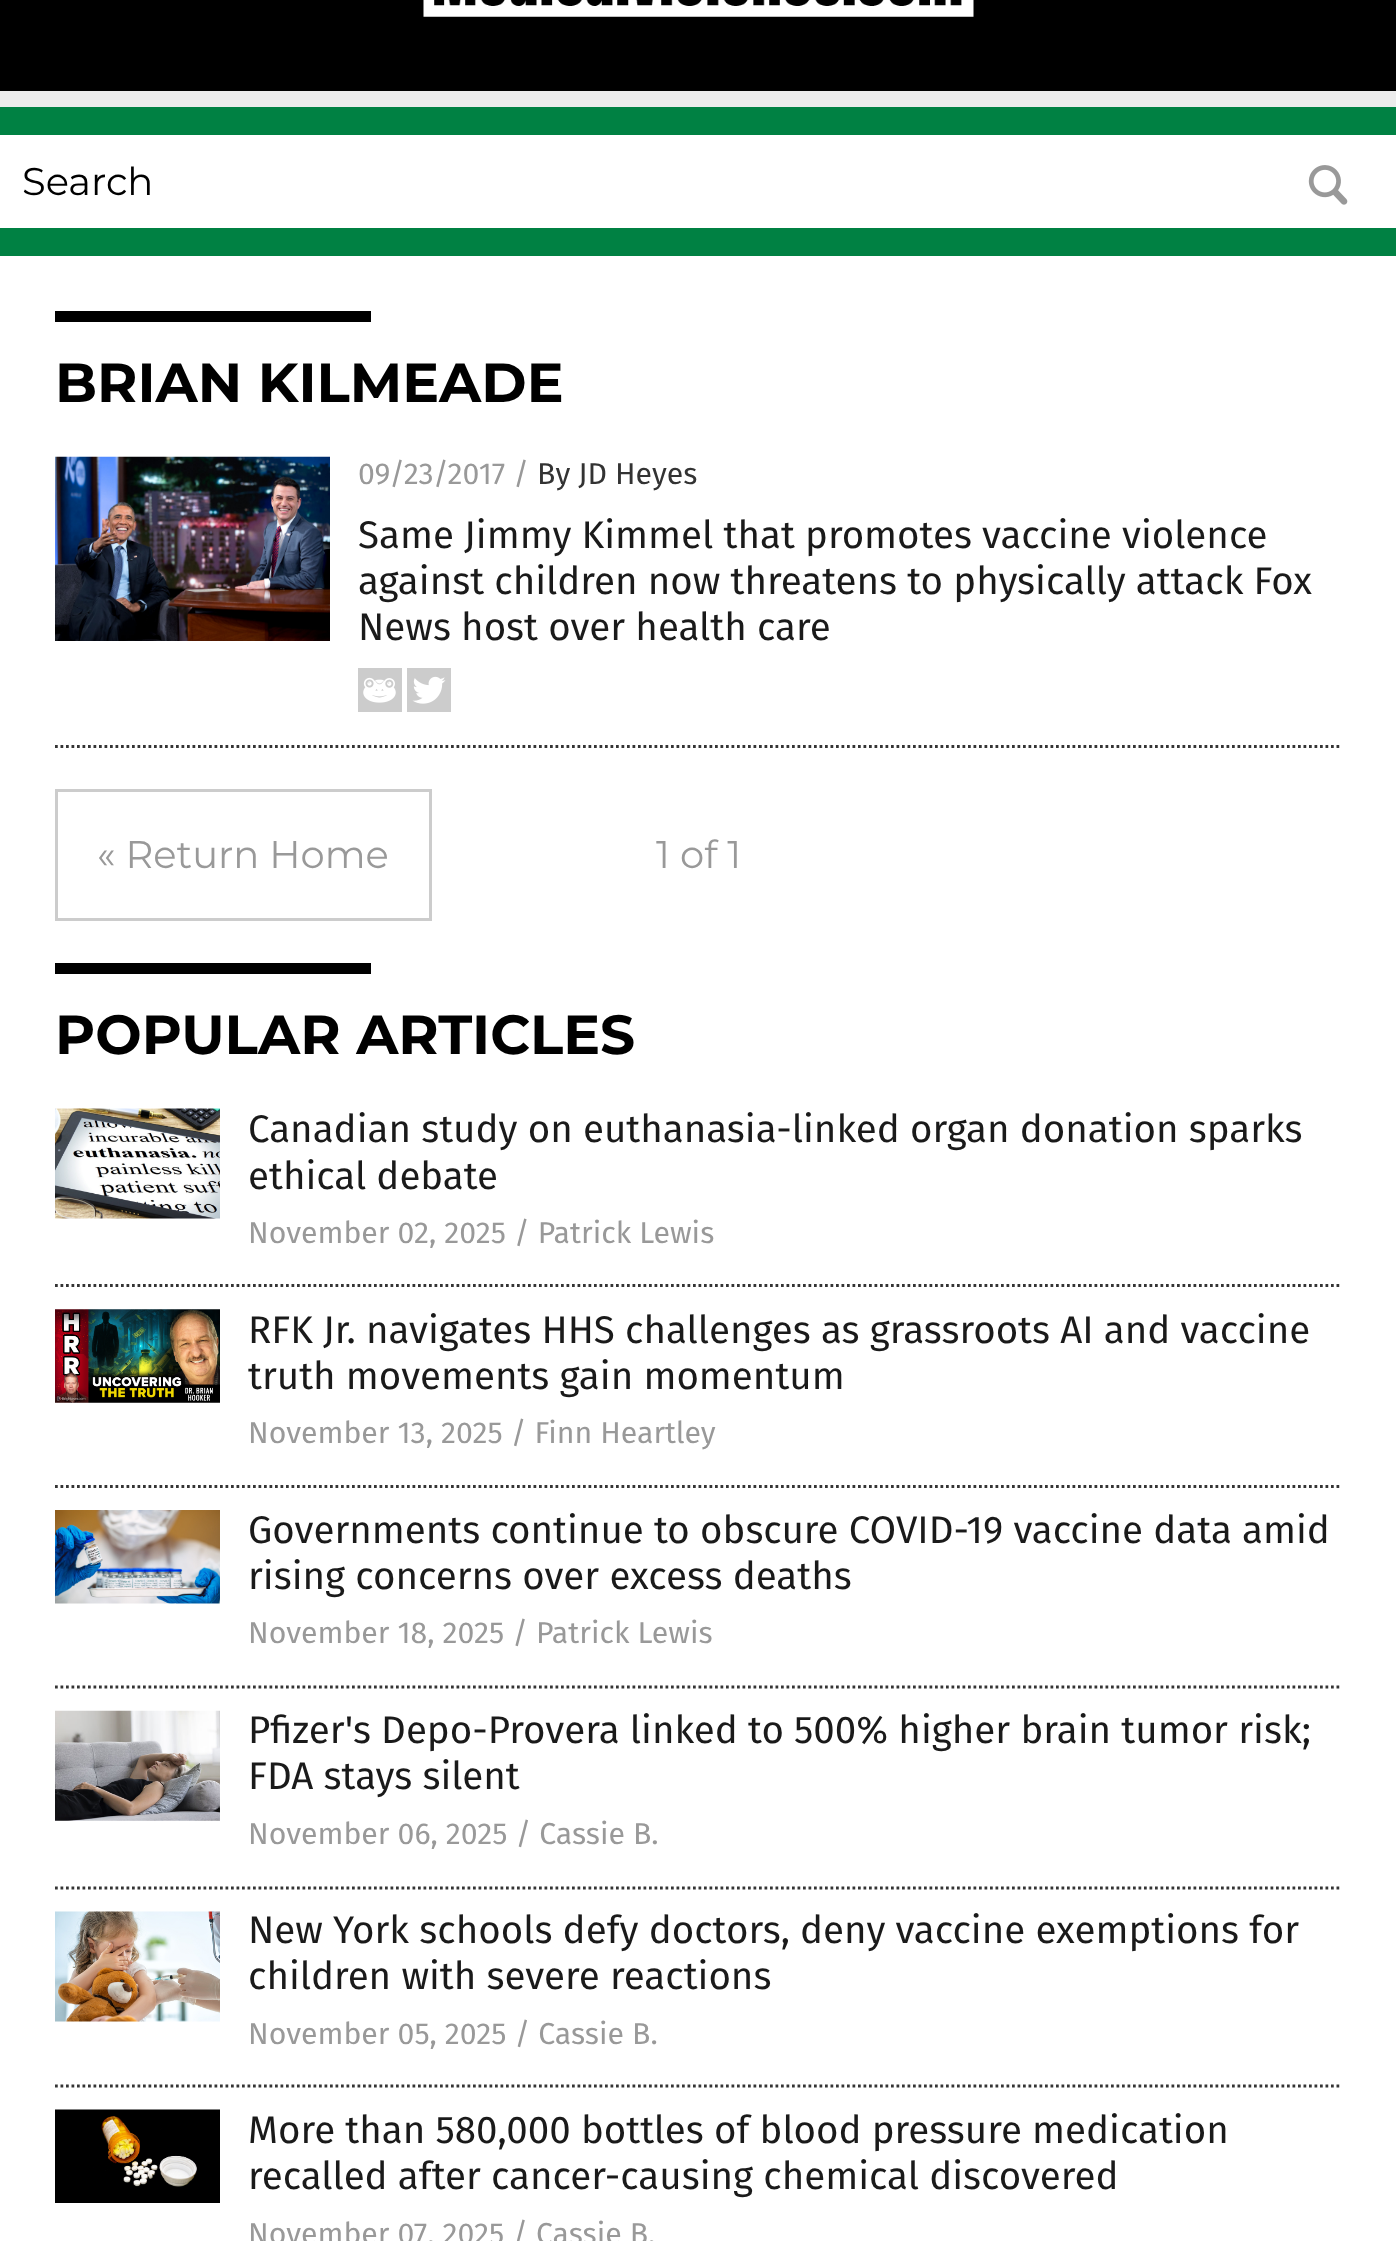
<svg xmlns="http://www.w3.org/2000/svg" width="1396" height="2241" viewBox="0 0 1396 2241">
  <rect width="100%" height="100%" fill="#008143"/>
  <path d="M0 0h1396v91H0z" fill="#000"/>
  <image x="423" y="0" width="551" height="17" href="img/1.png"/>
  <path d="M0 91h1396v16H0z" fill="#ececec"/>
  <path d="M0 135h1396v93H0z" fill="#fff"/>
  <image x="1308" y="165" width="40" height="40" href="img/2.png"/>
  <path d="M0 256h1396v1985H0z" fill="#fff"/>
  <path d="M55 311h316v11H55z" fill="#000"/>
  <path d="M55 746.5H1342" fill="none" stroke="#343434" stroke-width="2.8" stroke-dasharray="2.75 2.75"/>
  <image x="55" y="456" width="275" height="185" href="img/3.png"/>
  <image x="358" y="668" width="44" height="44" href="img/4.png"/>
  <image x="407" y="668" width="44" height="44" href="img/5.png"/>
  <path d="M56.5 790.5h374v129H56.5z" fill="none" stroke="#ccc" stroke-width="3"/>
  <path d="M55 963h316v11H55z" fill="#000"/>
  <path d="M55 1285.5H1342" fill="none" stroke="#343434" stroke-width="2.8" stroke-dasharray="2.75 2.75"/>
  <image x="55" y="1108" width="165" height="111" href="img/6.png"/>
  <path d="M55 1486.5H1342" fill="none" stroke="#343434" stroke-width="2.8" stroke-dasharray="2.75 2.75"/>
  <image x="55" y="1309" width="165" height="94" href="img/7.png"/>
  <path d="M55 1687H1342" fill="none" stroke="#343434" stroke-width="2.8" stroke-dasharray="2.75 2.75"/>
  <image x="55" y="1510" width="165" height="94" href="img/8.png"/>
  <path d="M55 1888H1342" fill="none" stroke="#343434" stroke-width="2.8" stroke-dasharray="2.75 2.75"/>
  <image x="55" y="1710" width="165" height="111" href="img/9.png"/>
  <path d="M55 2086H1342" fill="none" stroke="#343434" stroke-width="2.8" stroke-dasharray="2.75 2.75"/>
  <image x="55" y="1911" width="165" height="111" href="img/10.png"/>
  <image x="55" y="2109" width="165" height="94" href="img/11.png"/>
  <text x="22" y="195" font-family="Montserrat" font-size="38.5" fill="#000">Search</text>
  <text x="55" y="402" font-family="Montserrat" font-size="55" font-weight="bold" fill="#000">BRIAN KILMEADE</text>
  <text x="358" y="484" font-family="Fira Sans" font-size="30.25" fill="#999">09/23/2017 /</text>
  <text x="537" y="484" font-family="Fira Sans" font-size="30.25" fill="#333">By JD Heyes</text>
  <g font-family="Fira Sans" font-size="38.5" fill="#1a1a1a">
    <text x="358" y="548">Same Jimmy Kimmel that promotes vaccine violence</text>
    <text x="358" y="594">against children now threatens to physically attack Fox</text>
    <text x="358" y="640">News host over health care</text>
  </g>
  <g font-family="Montserrat" font-size="38.5" fill="#999">
    <text x="97" y="868">« Return Home</text>
    <text x="656" y="868">1 of 1</text>
  </g>
  <text x="55" y="1054" font-family="Montserrat" font-size="55" font-weight="bold" fill="#000">POPULAR ARTICLES</text>
  <g font-family="Fira Sans" font-size="38.5" fill="#1a1a1a">
    <text x="248" y="1142">Canadian study on euthanasia-linked organ donation sparks</text>
    <text x="248" y="1189">ethical debate</text>
  </g>
  <text x="248" y="1243" font-family="Fira Sans" font-size="30.25" fill="#999">November 02, 2025 / Patrick Lewis</text>
  <g font-family="Fira Sans" font-size="38.5" fill="#1a1a1a">
    <text x="248" y="1343">RFK Jr. navigates HHS challenges as grassroots AI and vaccine</text>
    <text x="248" y="1389">truth movements gain momentum</text>
  </g>
  <text x="248" y="1443" font-family="Fira Sans" font-size="30.25" fill="#999">November 13, 2025 / Finn Heartley</text>
  <g font-family="Fira Sans" font-size="38.5" fill="#1a1a1a">
    <text x="248" y="1543">Governments continue to obscure COVID-19 vaccine data amid</text>
    <text x="248" y="1589">rising concerns over excess deaths</text>
  </g>
  <text x="248" y="1643" font-family="Fira Sans" font-size="30.25" fill="#999">November 18, 2025 / Patrick Lewis</text>
  <g font-family="Fira Sans" font-size="38.5" fill="#1a1a1a">
    <text x="248" y="1743">Pfizer's Depo-Provera linked to 500% higher brain tumor risk;</text>
    <text x="248" y="1789">FDA stays silent</text>
  </g>
  <text x="248" y="1844" font-family="Fira Sans" font-size="30.25" fill="#999">November 06, 2025 / Cassie B.</text>
  <g font-family="Fira Sans" font-size="38.5" fill="#1a1a1a">
    <text x="248" y="1943">New York schools defy doctors, deny vaccine exemptions for</text>
    <text x="248" y="1989">children with severe reactions</text>
  </g>
  <text x="248" y="2044" font-family="Fira Sans" font-size="30.25" fill="#999">November 05, 2025 / Cassie B.</text>
  <g font-family="Fira Sans" font-size="38.5" fill="#1a1a1a">
    <text x="248" y="2143">More than 580,000 bottles of blood pressure medication</text>
    <text x="248" y="2189">recalled after cancer-causing chemical discovered</text>
  </g>
  <text x="248" y="2244" font-family="Fira Sans" font-size="30.25" fill="#999">November 07, 2025 / Cassie B.</text>
</svg>
